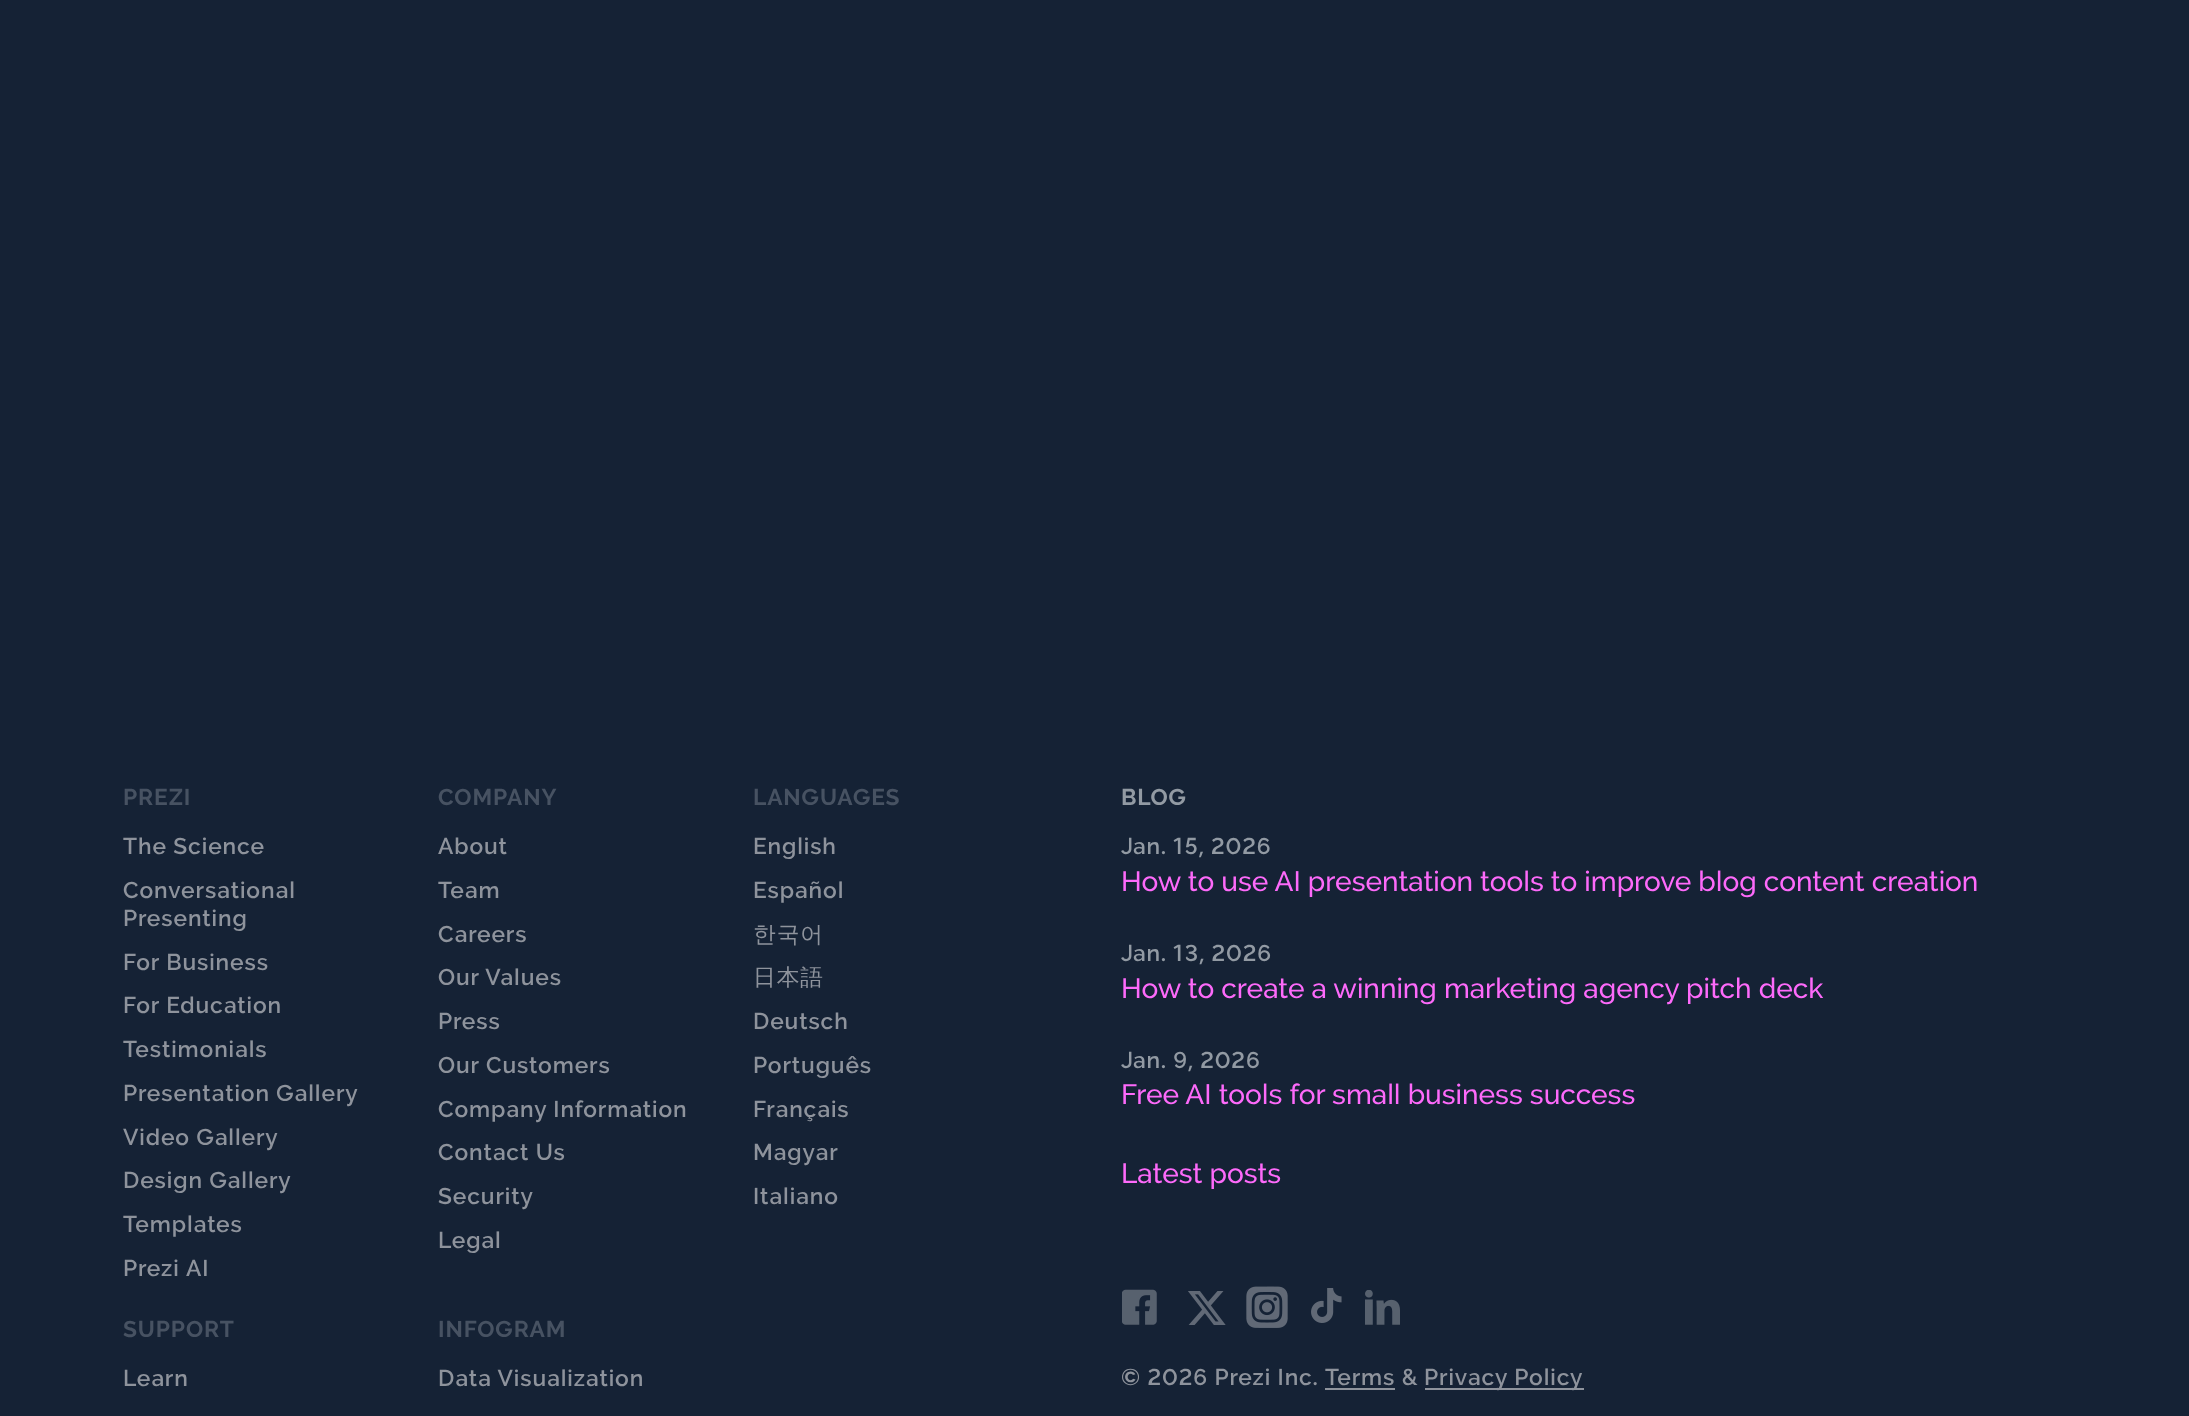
<svg xmlns="http://www.w3.org/2000/svg" width="2189" height="1416" viewBox="0 0 2189 1416">
  <rect width="100%" height="100%" fill="#152235"/>
  <image x="1122" y="1289" width="35" height="36" href="img/1.png"/>
  <image x="1188" y="1291" width="38" height="34" href="img/2.png"/>
  <image x="1246" y="1286" width="42" height="42" href="img/3.png"/>
  <image x="1311" y="1288" width="31" height="35" href="img/4.png"/>
  <image x="1365" y="1290" width="35" height="35" href="img/5.png"/>
  <path d="M1325 1388h70v2H1325z" fill="#8e939c"/>
  <path d="M1425 1388h159v2H1425z" fill="#8e939c"/>
  <text x="123" y="805" font-family="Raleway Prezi" font-size="22.75" font-weight="bold" letter-spacing="0.9" fill="#475262">PREZI</text>
  <g font-family="Raleway Prezi" font-size="22.75" font-weight="600" letter-spacing="0.9" fill="#8e939c">
    <text x="123" y="854">The Science</text>
    <text x="123" y="898">Conversational</text>
    <text x="123" y="926">Presenting</text>
    <text x="123" y="970">For Business</text>
    <text x="123" y="1013">For Education</text>
    <text x="123" y="1057">Testimonials</text>
    <text x="123" y="1101">Presentation Gallery</text>
    <text x="123" y="1145">Video Gallery</text>
    <text x="123" y="1188">Design Gallery</text>
    <text x="123" y="1232">Templates</text>
    <text x="123" y="1276">Prezi AI</text>
  </g>
  <text x="438" y="805" font-family="Raleway Prezi" font-size="22.75" font-weight="bold" letter-spacing="0.9" fill="#475262">COMPANY</text>
  <g font-family="Raleway Prezi" font-size="22.75" font-weight="600" letter-spacing="0.9" fill="#8e939c">
    <text x="438" y="854">About</text>
    <text x="438" y="898">Team</text>
    <text x="438" y="942">Careers</text>
    <text x="438" y="985">Our Values</text>
    <text x="438" y="1029">Press</text>
    <text x="438" y="1073">Our Customers</text>
    <text x="438" y="1117">Company Information</text>
    <text x="438" y="1160">Contact Us</text>
    <text x="438" y="1204">Security</text>
    <text x="438" y="1248">Legal</text>
  </g>
  <text x="753" y="805" font-family="Raleway Prezi" font-size="22.75" font-weight="bold" letter-spacing="0.9" fill="#475262">LANGUAGES</text>
  <g font-family="Raleway Prezi" font-size="22.75" font-weight="600" letter-spacing="0.9" fill="#8e939c">
    <text x="753" y="854">English</text>
    <text x="753" y="898">Español</text>
  </g>
  <g font-family="WenQuanYi Zen Hei" font-size="22.75" font-weight="500" letter-spacing="0.9" fill="#8e939c">
    <text x="753" y="942">한국어</text>
    <text x="753" y="985">日本語</text>
  </g>
  <g font-family="Raleway Prezi" font-size="22.75" font-weight="600" letter-spacing="0.9" fill="#8e939c">
    <text x="753" y="1029">Deutsch</text>
    <text x="753" y="1073">Português</text>
    <text x="753" y="1117">Français</text>
    <text x="753" y="1160">Magyar</text>
    <text x="753" y="1204">Italiano</text>
  </g>
  <text x="123" y="1337" font-family="Raleway Prezi" font-size="22.75" font-weight="bold" letter-spacing="0.9" fill="#475262">SUPPORT</text>
  <text x="123" y="1386" font-family="Raleway Prezi" font-size="22.75" font-weight="600" letter-spacing="0.9" fill="#8e939c">Learn</text>
  <text x="438" y="1337" font-family="Raleway Prezi" font-size="22.75" font-weight="bold" letter-spacing="0.9" fill="#475262">INFOGRAM</text>
  <text x="438" y="1386" font-family="Raleway Prezi" font-size="22.75" font-weight="600" letter-spacing="0.9" fill="#8e939c">Data Visualization</text>
  <text x="1121" y="805" font-family="Raleway Prezi" font-size="22.75" font-weight="bold" letter-spacing="0.9" fill="#929aa3">BLOG</text>
  <text x="1121" y="854" font-family="Raleway Prezi" font-size="22.75" font-weight="600" letter-spacing="0.9" fill="#929aa3">Jan. 15, 2026</text>
  <text x="1121" y="891" font-family="Raleway Prezi" font-size="28" font-weight="500" fill="#fd6afa">How to use AI presentation tools to improve blog content creation</text>
  <text x="1121" y="961" font-family="Raleway Prezi" font-size="22.75" font-weight="600" letter-spacing="0.9" fill="#929aa3">Jan. 13, 2026</text>
  <text x="1121" y="998" font-family="Raleway Prezi" font-size="28" font-weight="500" fill="#fd6afa">How to create a winning marketing agency pitch deck</text>
  <text x="1121" y="1068" font-family="Raleway Prezi" font-size="22.75" font-weight="600" letter-spacing="0.9" fill="#929aa3">Jan. 9, 2026</text>
  <g font-family="Raleway Prezi" font-size="28" font-weight="500" fill="#fd6afa">
    <text x="1121" y="1104">Free AI tools for small business success</text>
    <text x="1121" y="1183">Latest posts</text>
  </g>
  <g font-family="Raleway Prezi" font-size="22.75" font-weight="600" letter-spacing="0.9" fill="#8e939c">
    <text x="1121" y="1385">© 2026 Prezi Inc. Terms &amp;</text>
    <text x="1424" y="1385">Privacy Policy</text>
  </g>
</svg>
